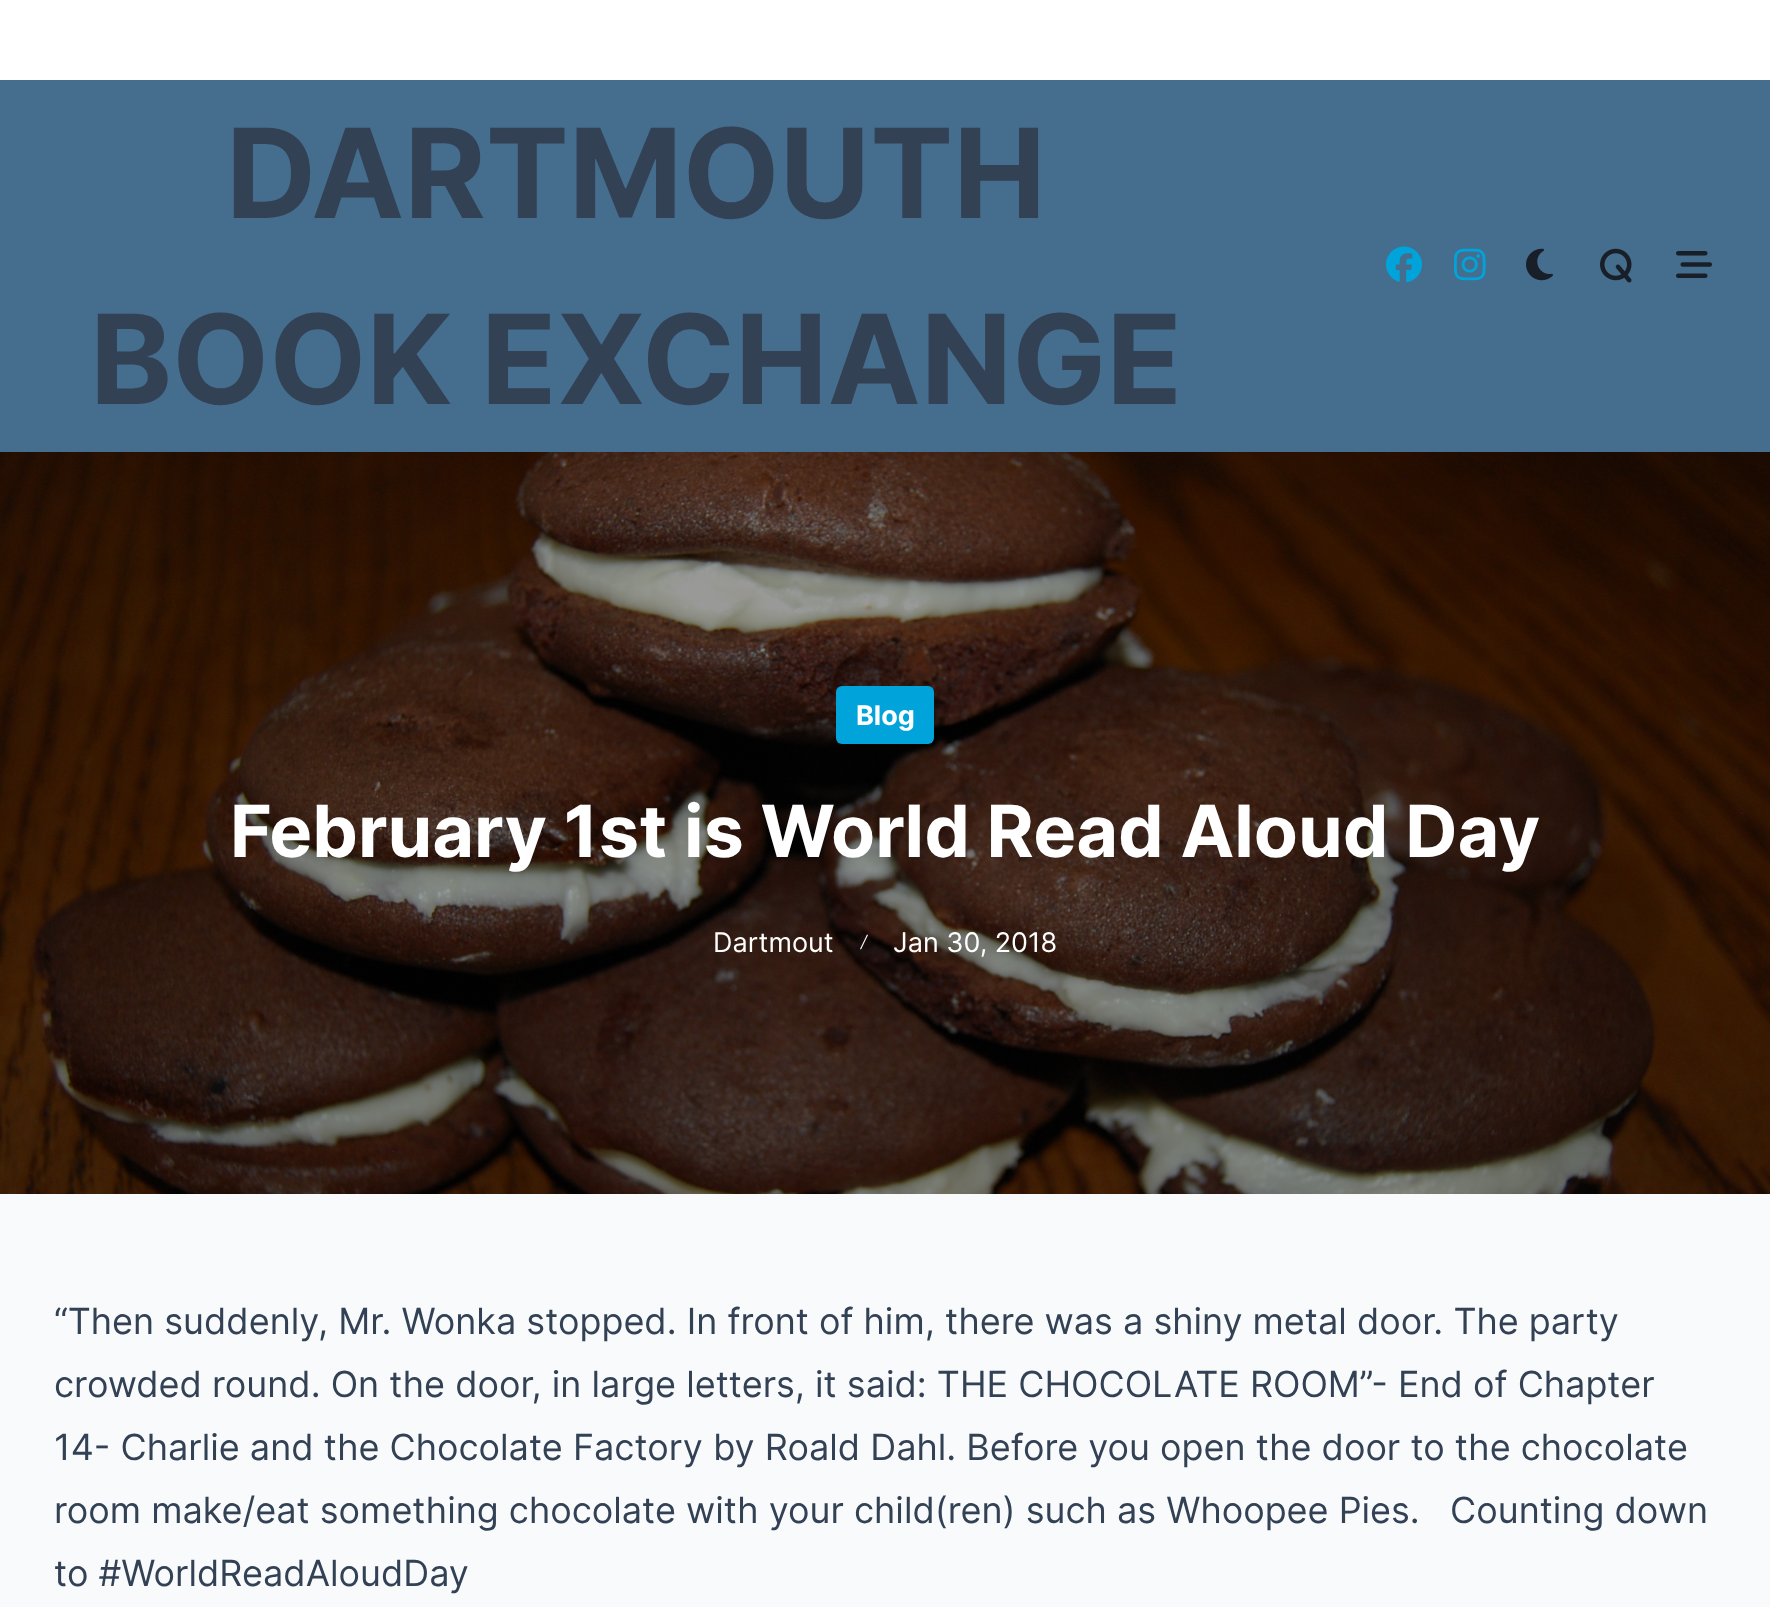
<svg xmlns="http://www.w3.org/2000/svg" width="1770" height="1607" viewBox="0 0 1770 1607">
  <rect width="100%" height="100%" fill="#f8fafc"/>
  <path d="M0 0h1770v80H0z" fill="#fff"/>
  <path d="M0 80h1770v372H0z" fill="#456d8d"/>
  <image x="1386" y="246" width="36" height="37" href="img/1.png"/>
  <image x="1454" y="248" width="32" height="33" href="img/2.png"/>
  <image x="1526" y="248" width="27" height="33" href="img/3.png"/>
  <image x="1600" y="248" width="32" height="35" href="img/4.png"/>
  <image x="1676" y="251" width="36" height="27" href="img/5.png"/>
  <image x="0" y="452" width="1770" height="742" href="img/6.png"/>
  <rect x="836" y="686" width="98" height="58" rx="6" fill="#00a4db"/>
  <path d="M860 949L867 934.5L868 935L861 949.5Z" fill="#fff"/>
  <g font-family="Inter" font-size="124.25" font-weight="bold" fill="#334155">
    <text x="226" y="218">DARTMOUTH</text>
    <text x="90" y="404">BOOK EXCHANGE</text>
  </g>
  <text x="856" y="725" font-family="Inter" font-size="27" font-weight="bold" fill="#fff">Blog</text>
  <text x="230" y="857" font-family="Inter" font-size="72" font-weight="bold" fill="#fff">February 1st is World Read Aloud Day</text>
  <g font-family="Inter" font-size="27" fill="#fff">
    <text x="713" y="952">Dartmout</text>
    <text x="893" y="952">Jan 30, 2018</text>
  </g>
  <g font-family="Inter" font-size="36" fill="#334155">
    <text x="54" y="1334">“Then suddenly, Mr. Wonka stopped. In front of him, there was a shiny metal door. The party</text>
    <text x="54" y="1397">crowded round. On the door, in large letters, it said: THE CHOCOLATE ROOM”- End of Chapter</text>
    <text x="54" y="1460">14- Charlie and the Chocolate Factory by Roald Dahl. Before you open the door to the chocolate</text>
    <text x="54" y="1523" xml:space="preserve">room make/eat something chocolate with your child(ren) such as Whoopee Pies.   Counting down</text>
    <text x="54" y="1586">to #WorldReadAloudDay</text>
  </g>
</svg>
